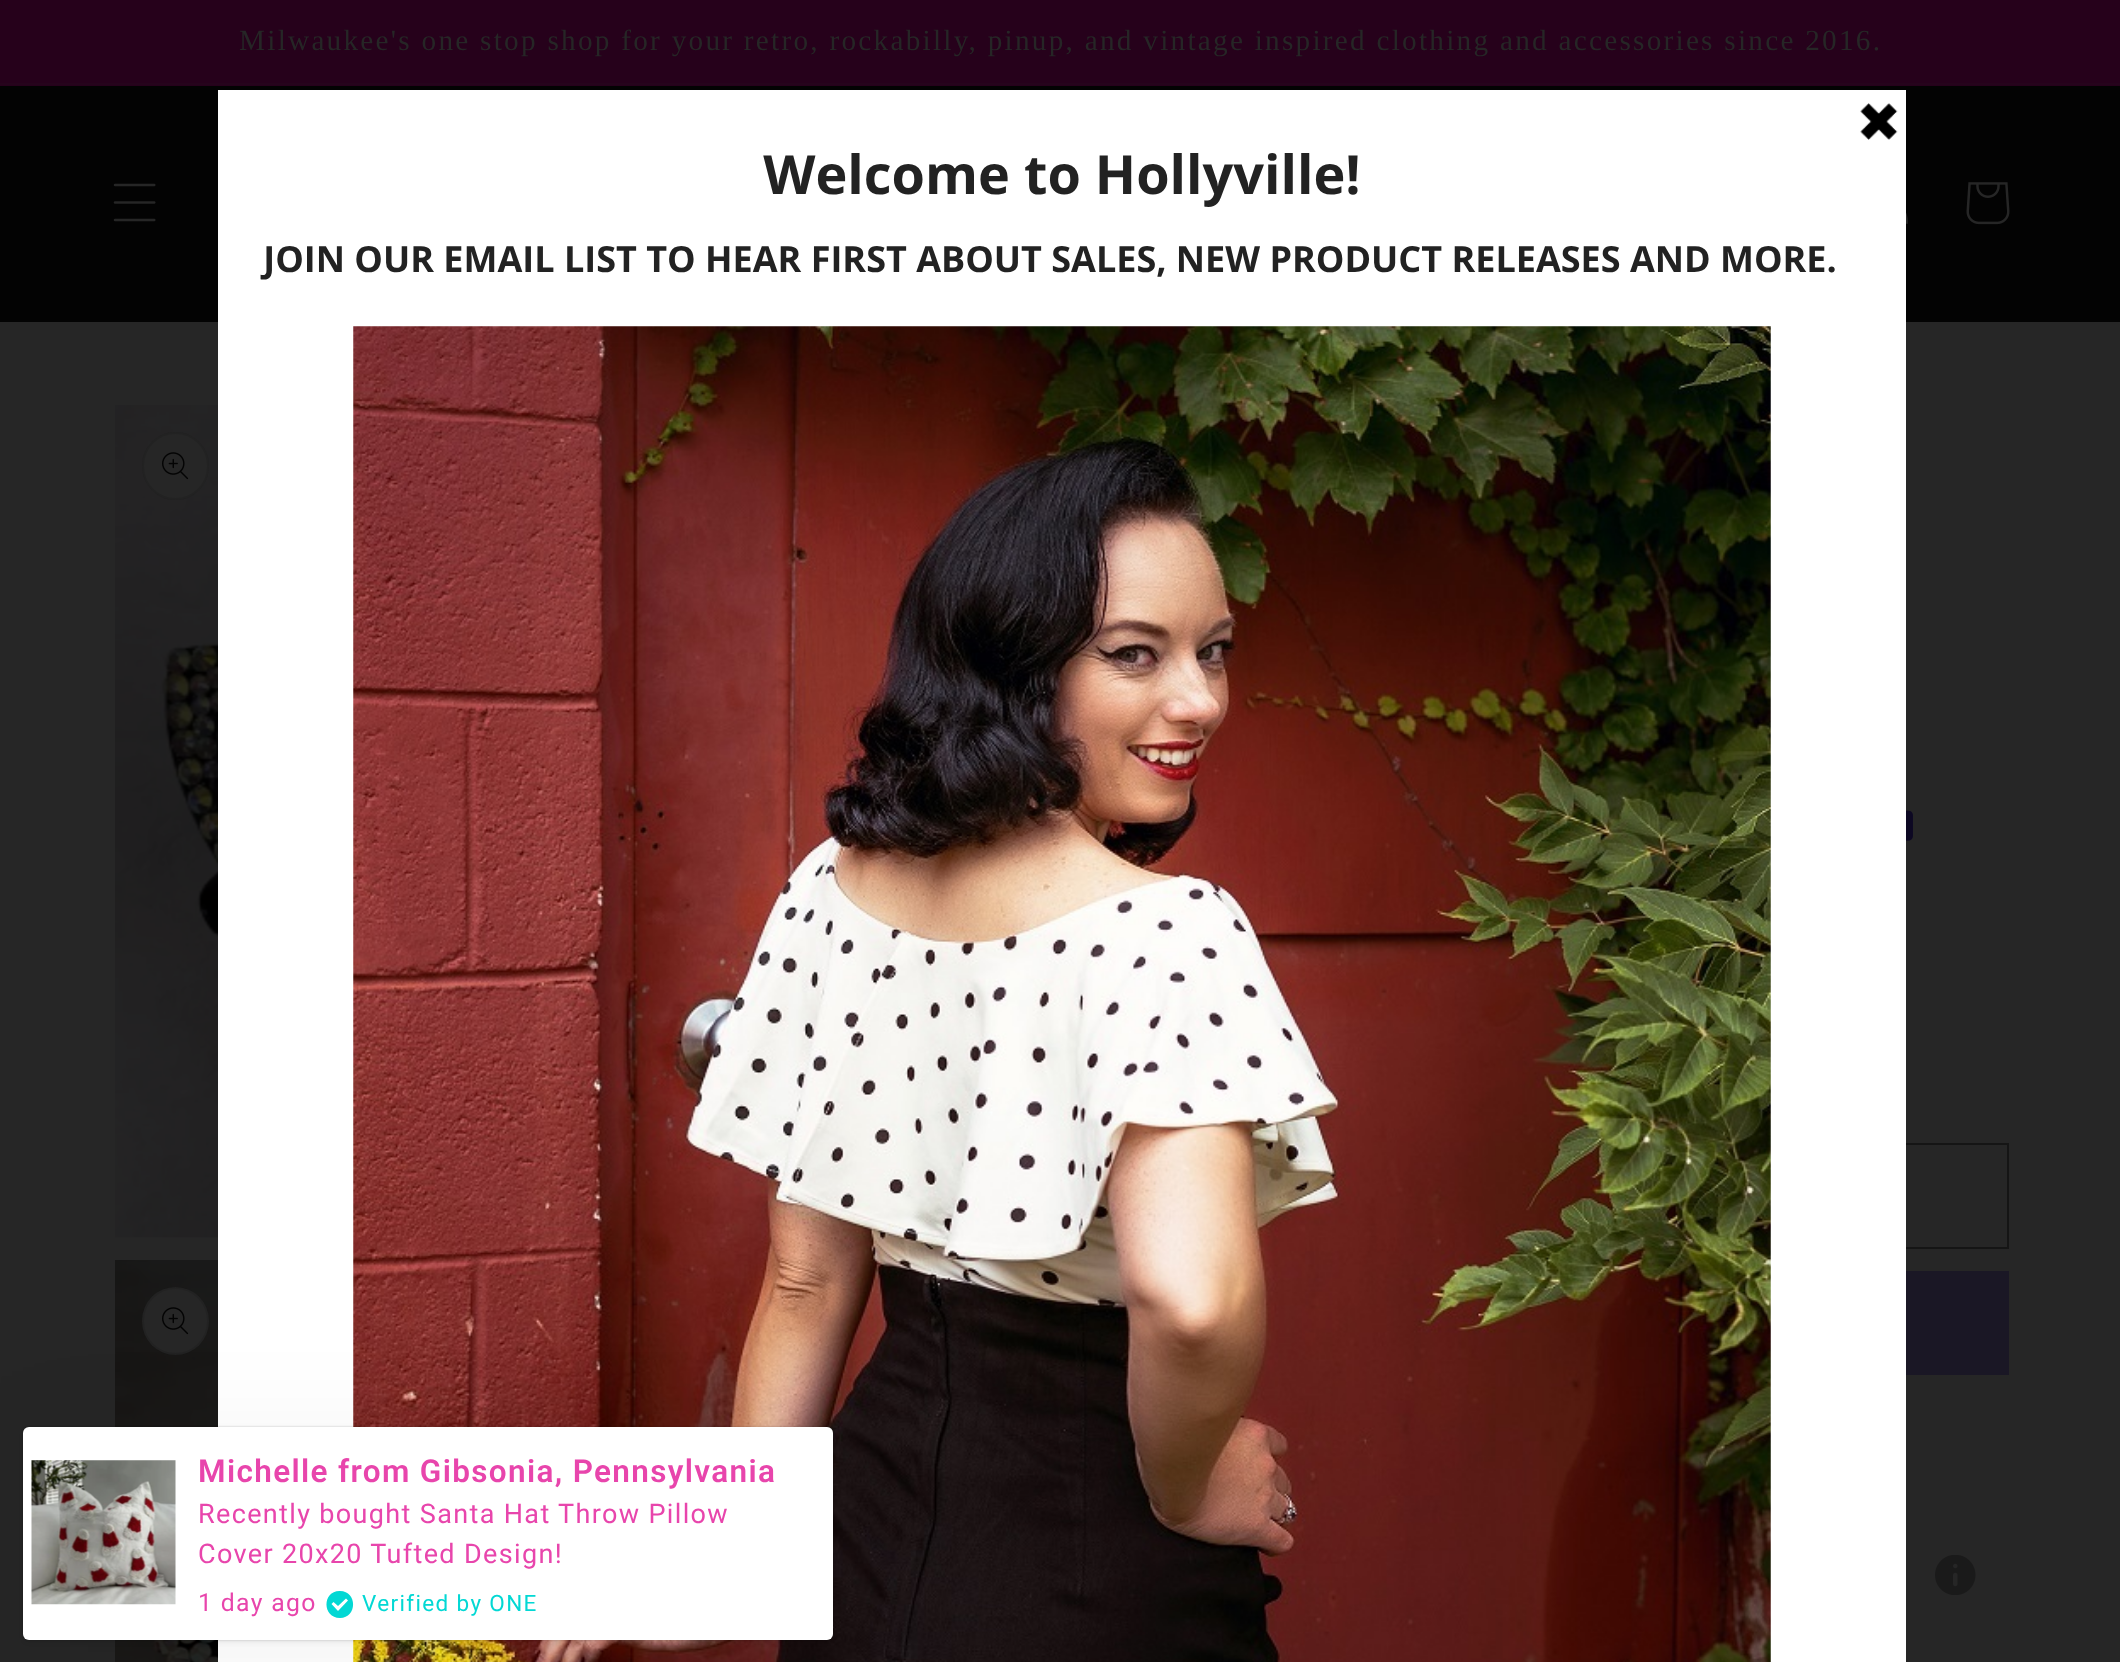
<svg xmlns="http://www.w3.org/2000/svg" width="2120" height="1662" viewBox="0 0 2120 1662">
  <rect width="100%" height="100%" fill="#262626"/>
  <path d="M0 0h2120v86H0z" fill="#26011b"/>
  <path d="M0 83h2120v2H0z" fill="#26041c"/>
  <path d="M0 86h2120v236H0z" fill="#030303"/>
  <image x="113" y="183" width="43" height="39" href="img/1.png"/>
  <image x="1906" y="212" width="2" height="12" href="img/2.png"/>
  <image x="1966" y="182" width="44" height="43" href="img/3.png"/>
  <path d="M1176 1144h832v104H1176z" fill="none" stroke="#151515" stroke-width="2"/>
  <image x="218" y="90" width="1688" height="1572" href="img/4.png"/>
  <image x="115" y="405" width="103" height="833" href="img/5.png"/>
  <rect x="142" y="432" width="67" height="68" rx="33.5" fill="#262626"/>
  <rect x="143" y="433" width="65" height="66" rx="32.5" fill="none" stroke="#0303031a" stroke-width="2"/>
  <image x="162" y="452" width="27" height="28" href="img/6.png"/>
  <image x="115" y="1260" width="103" height="402" href="img/7.png"/>
  <rect x="142" y="1287" width="67" height="68" rx="33.5" fill="#262626"/>
  <rect x="143" y="1288" width="65" height="66" rx="32.5" fill="none" stroke="#0303031a" stroke-width="2"/>
  <image x="162" y="1307" width="27" height="28" href="img/6.png"/>
  <image x="1906" y="810" width="7" height="31" href="img/8.png"/>
  <path d="M1906 1271h103v104H1906z" fill="#1a1725"/>
  <image x="1935" y="1555" width="41" height="40" href="img/9.png"/>
  <rect x="23" y="1445" width="810" height="213" rx="6" fill="#0000000d" filter="blur(56px)"/>
  <rect x="23" y="1429" width="810" height="214" rx="6" fill="#0000000d" filter="blur(2px)"/>
  <rect x="23" y="1427" width="810" height="213" rx="6" fill="#00000033" filter="blur(1px)"/>
  <rect x="23" y="1427" width="810" height="213" rx="6" fill="#fff"/>
  <image x="31" y="1460" width="145" height="145" href="img/10.png"/>
  <path d="M340 1618C322 1618 322 1590.5 340 1591C357.5 1591 357.5 1618 340 1618ZM346 1598.5L338 1606L333.5 1602L331.5 1604L338 1611L348 1600.5Z" fill="#03d8d4" fill-rule="evenodd"/>
  <text x="239" y="50" font-family="Liberation Serif" font-size="29.25" letter-spacing="2.25" fill="#262626">Milwaukee's one stop shop for your retro, rockabilly, pinup, and vintage inspired clothing and accessories since 2016.</text>
  <text x="198" y="1482" font-family="Roboto" font-size="31.5" font-weight="600" letter-spacing="1.35" fill="#e845ac">Michelle from Gibsonia, Pennsylvania</text>
  <g font-family="Roboto" font-size="27" letter-spacing="1.35" fill="#e845ac">
    <text x="198" y="1523">Recently bought Santa Hat Throw Pillow</text>
    <text x="198" y="1563">Cover 20x20 Tufted Design!</text>
  </g>
  <text x="198" y="1611" font-family="Roboto" font-size="24.75" letter-spacing="1.35" fill="#e845ac">1 day ago</text>
  <text x="362" y="1611" font-family="Roboto" font-size="22.5" letter-spacing="1.35" fill="#03d8d4">Verified by ONE</text>
</svg>
